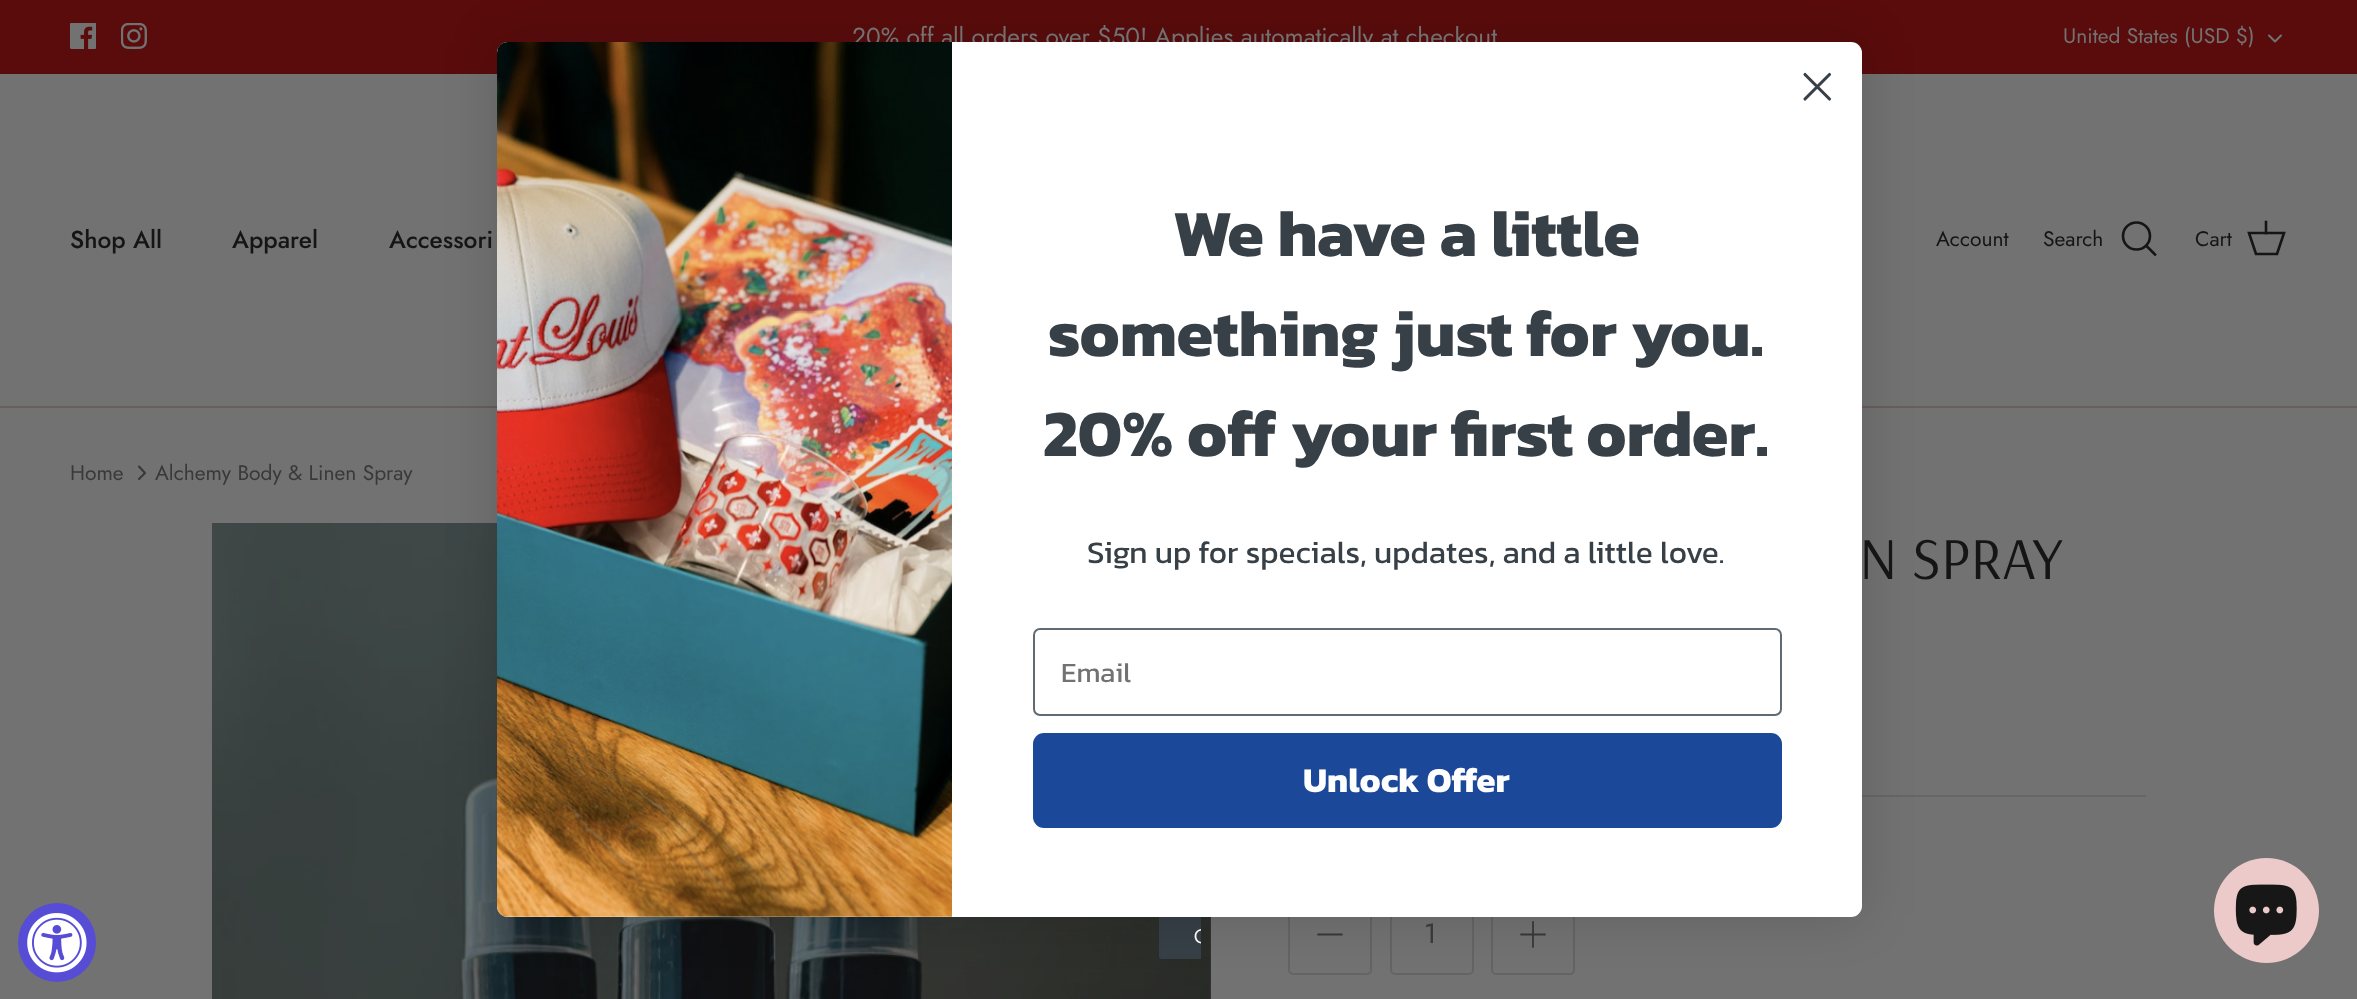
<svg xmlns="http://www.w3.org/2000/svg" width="2357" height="999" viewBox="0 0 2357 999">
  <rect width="100%" height="100%" fill="#727272"/>
  <path d="M0 0h2357v74H0z" fill="#5a0c0c"/>
  <image x="70" y="23" width="26" height="26" href="img/1.png"/>
  <image x="121" y="23" width="26" height="26" href="img/2.png"/>
  <path d="M2269 35.5L2275 41.5L2281 35.5" fill="none" stroke="#727272" stroke-width="2" stroke-linecap="round" stroke-linejoin="round"/>
  <image x="212" y="523" width="999" height="476" href="img/6.png"/>
  <image x="1159" y="917" width="42" height="42" href="img/4.png"/>
  <path d="M0 406h2357v2H0z" fill="#6a5d5c"/>
  <path d="M1862 795h284v2H1862z" fill="#666"/>
  <rect x="1289" y="892" width="82" height="82" rx="4" fill="none" stroke="#646464" stroke-width="2"/>
  <path d="M1318 934.5H1342" fill="none" stroke="#39393a" stroke-width="1.8" stroke-linecap="round" stroke-linejoin="round"/>
  <rect x="1391" y="892" width="82" height="82" rx="4" fill="none" stroke="#646464" stroke-width="2"/>
  <rect x="1492" y="892" width="82" height="82" rx="4" fill="none" stroke="#646464" stroke-width="2"/>
  <path d="M1533 922V947M1521 934.5H1545" fill="none" stroke="#39393a" stroke-width="1.8" stroke-linecap="round" stroke-linejoin="round"/>
  <rect x="497" y="42" width="1365" height="875" rx="11" fill="#00000026" filter="blur(26px)"/>
  <circle cx="2136.5" cy="236" r="13.5" fill="none" stroke="#151515" stroke-width="2.6"/>
  <path d="M2147 246.5L2155 254.5" fill="none" stroke="#151515" stroke-width="2.6" stroke-linecap="square"/>
  <path d="M2249 233H2284L2277 254H2256Z" fill="none" stroke="#151515" stroke-width="2.6"/>
  <path d="M2266 233V222" fill="none" stroke="#151515" stroke-width="2.6" stroke-linecap="square"/>
  <rect x="18" y="903" width="78" height="79" rx="39" fill="#574cd5"/>
  <image x="27" y="913" width="60" height="60" href="img/5.png"/>
  <path d="M139 479L145 473L139 466.5" fill="none" stroke="#39393a" stroke-width="2.1" stroke-linecap="round" stroke-linejoin="round"/>
  <circle cx="2266.5" cy="910.5" r="52.5" fill="#eccac9"/>
  <image x="2235" y="884" width="62" height="62" href="img/7.png"/>
  <text x="852" y="45" font-family="Jost" font-size="24.5" fill="#727272">20% off all orders over $50! Applies automatically at checkout.</text>
  <text x="2063" y="43" font-family="Jost" font-size="21" fill="#727272">United States (USD $)</text>
  <rect x="497" y="42" width="1365" height="875" rx="11" fill="#fff"/>
  <path d="M1805 74.5L1829.5 99M1805 99L1829.5 74.5Z" fill="none" stroke="#373f47" stroke-width="3.1" stroke-linecap="round" stroke-linejoin="round"/>
  <image x="497" y="42" width="455" height="875" href="img/3.png"/>
  <g font-family="Kanit" font-size="66.5" font-weight="bold" fill="#373f47">
    <text x="1173" y="256">We have a little</text>
    <text x="1048" y="356">something just for you.</text>
    <text x="1043" y="456">20% off your first order.</text>
  </g>
  <text x="1087" y="563" font-family="Kanit" font-size="31.5" fill="#373f47">Sign up for specials, updates, and a little love.</text>
  <rect x="1034" y="629" width="747" height="86" rx="6" fill="none" stroke="#606a72" stroke-width="2"/>
  <text x="1061" y="682" font-family="Kanit" font-size="28" fill="#727272">Email</text>
  <rect x="1033" y="733" width="749" height="95" rx="11" fill="#1b4898"/>
  <text x="1303" y="792" font-family="Kanit" font-size="35" font-weight="bold" fill="#fff">Unlock Offer</text>
  <g font-family="Jost" font-size="24.5" font-weight="500" fill="#151515">
    <text x="70" y="248">Shop All</text>
    <text x="232" y="248">Apparel</text>
    <text x="389" y="248">Accessori</text>
  </g>
  <g font-family="Jost" font-size="21" fill="#151515">
    <text x="1936" y="246">Account</text>
    <text x="2043" y="246">Search</text>
    <text x="2195" y="246">Cart</text>
  </g>
  <g font-family="Jost" font-size="21" fill="#39393a">
    <text x="70" y="480">Home</text>
    <text x="155" y="480">Alchemy Body &amp; Linen Spray</text>
  </g>
  <text x="1859" y="579" font-family="Arsenal" font-size="59.5" fill="#151515">N SPRAY</text>
  <text x="1424" y="943" font-family="Jost" font-size="28" fill="#39393a">1</text>
</svg>
